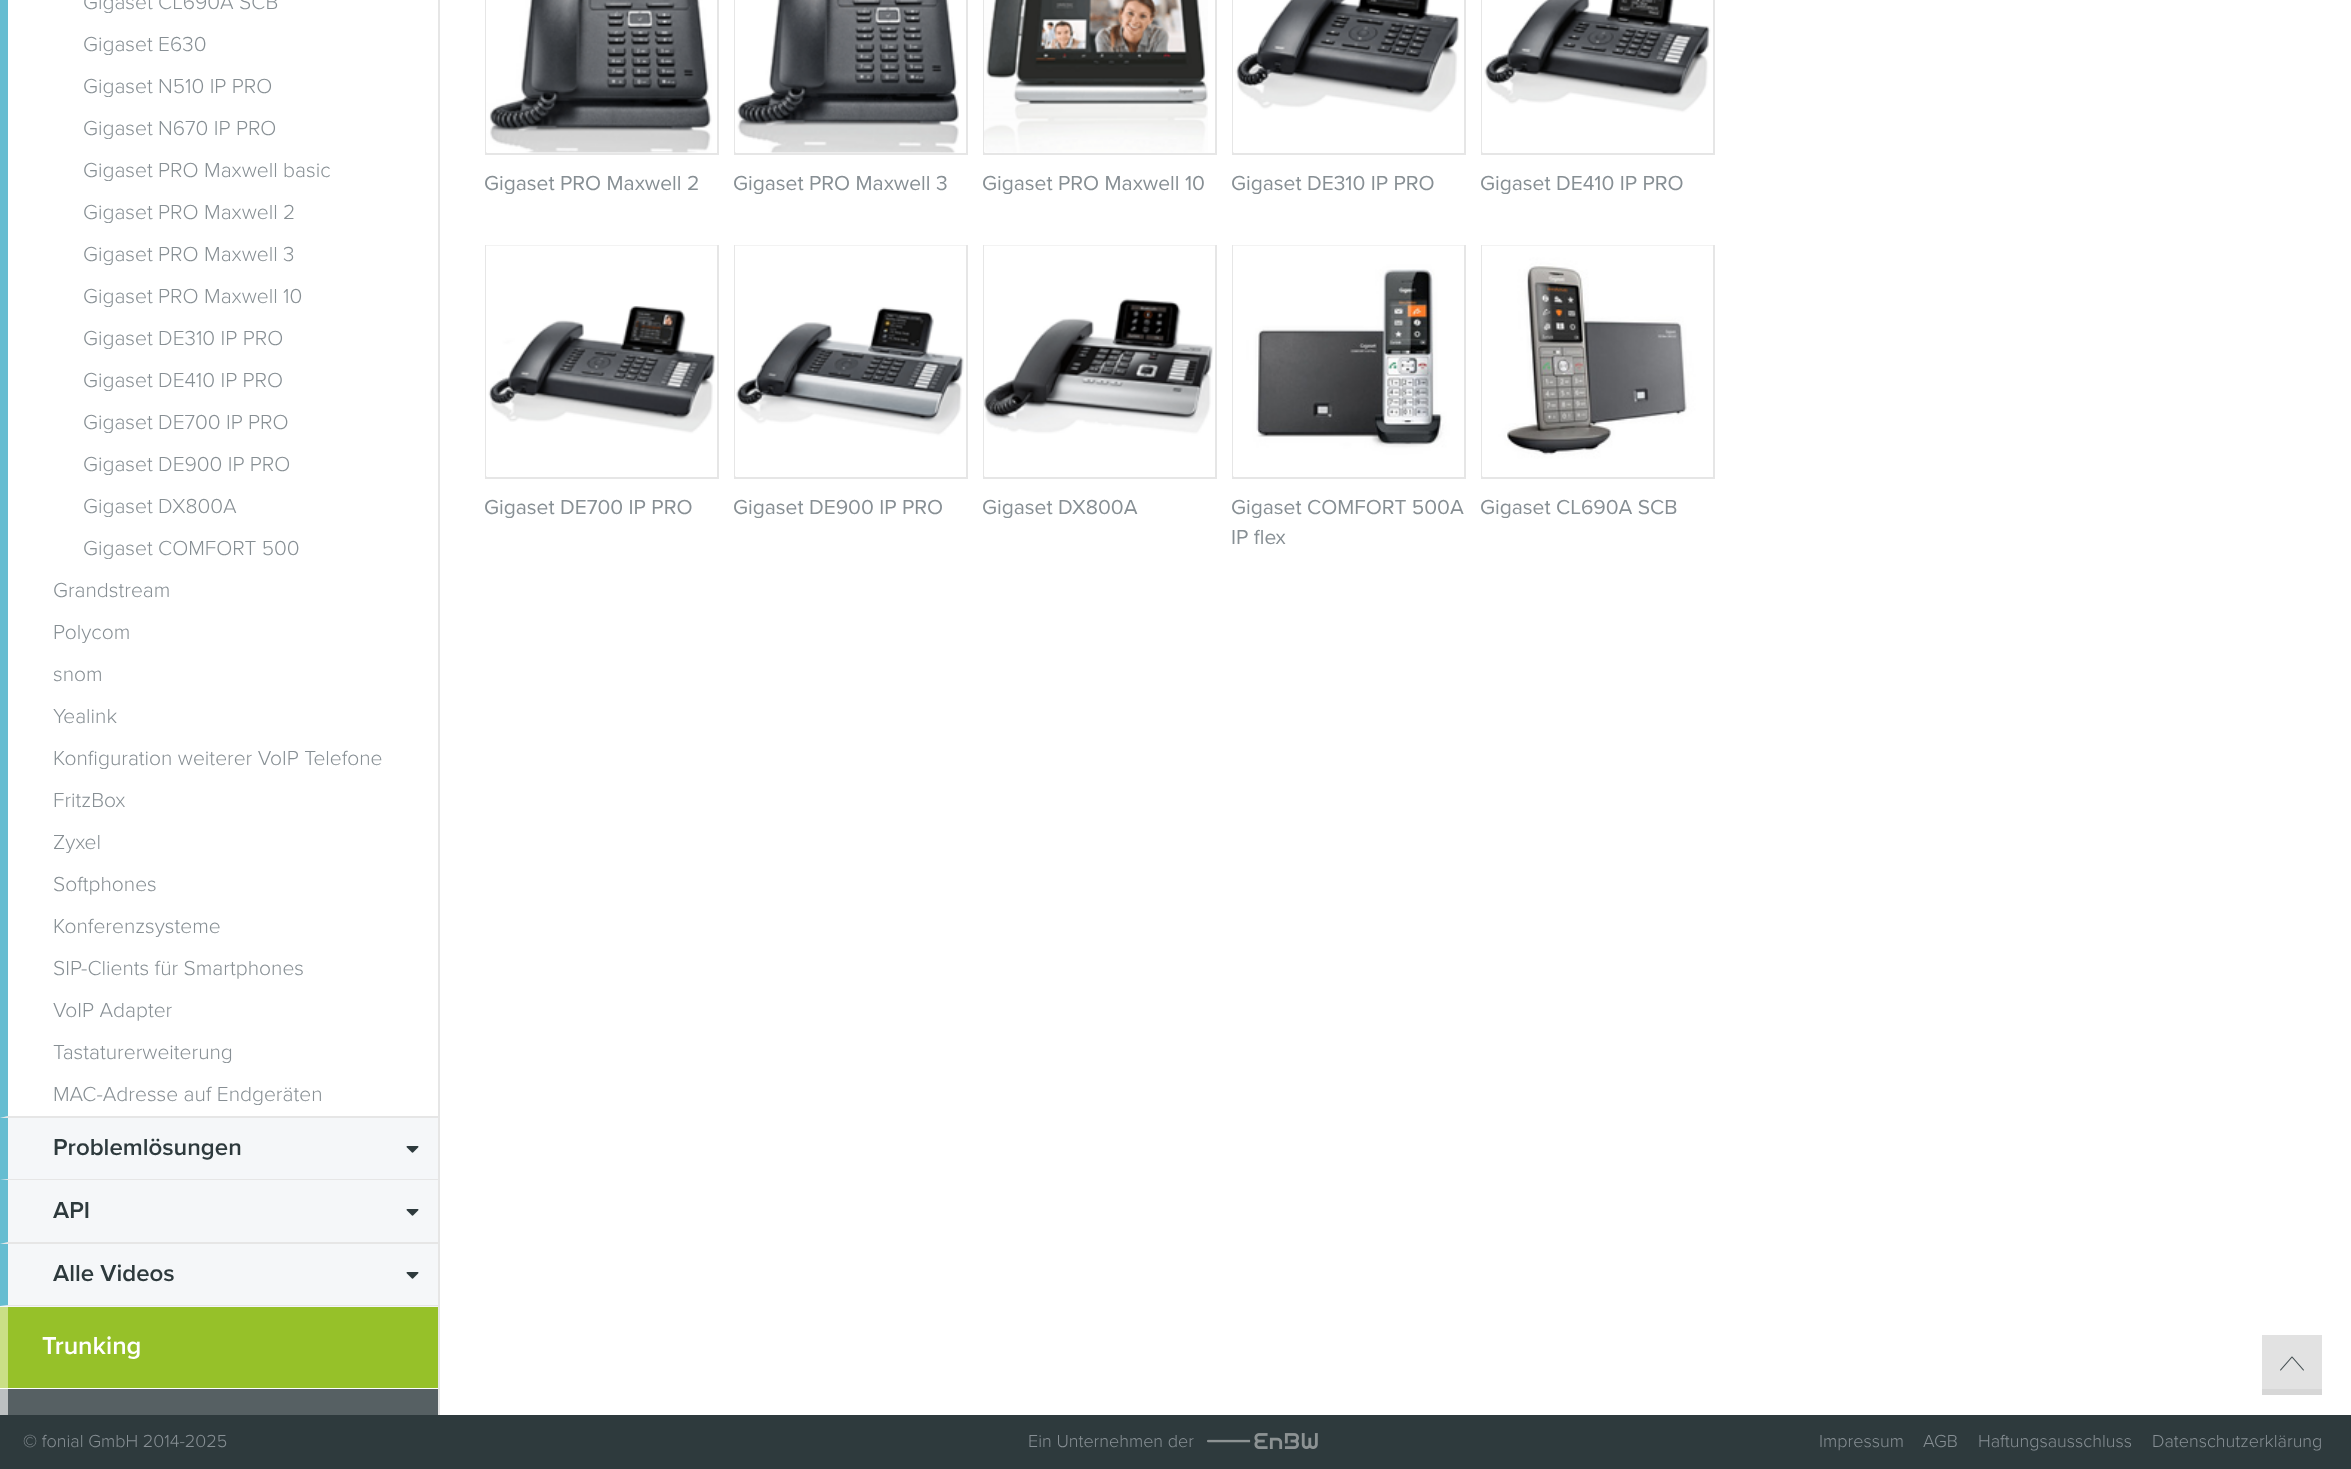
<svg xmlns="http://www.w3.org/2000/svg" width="2351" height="1469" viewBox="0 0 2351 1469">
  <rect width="100%" height="100%" fill="#fff"/>
  <path d="M0 1118h438v189H0z" fill="#f5f7f9"/>
  <path d="M438 0h2v1415H438z" fill="#e6e6e6"/>
  <path d="M438 1118H0L8 1116H438Z" fill="#e6e6e6"/>
  <path d="M0 1118V-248H8V1116Z" fill="#66bdd1"/>
  <path d="M438 1180H0L8 1179H438Z" fill="#e6e6e6"/>
  <path d="M0 1180V1118H8V1179Z" fill="#66bdd1"/>
  <image x="406" y="1146" width="13" height="7" href="img/1.png"/>
  <path d="M438 1244H0L8 1242H438Z" fill="#e6e6e6"/>
  <path d="M0 1244V1180H8V1242Z" fill="#66bdd1"/>
  <image x="406" y="1209" width="13" height="7" href="img/1.png"/>
  <path d="M438 1306H0L8 1305H438Z" fill="#e6e6e6"/>
  <path d="M0 1306V1244H8V1305Z" fill="#66bdd1"/>
  <image x="406" y="1272" width="13" height="7" href="img/1.png"/>
  <path d="M8 1307h430v81H8z" fill="#96c129"/>
  <path d="M0 1307h8v81H0z" fill="#cadf86"/>
  <path d="M8 1389h430v26H8z" fill="#566063"/>
  <path d="M0 1389h8v26H0z" fill="#bcc0c1"/>
  <path d="M486 -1h232v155H486z" fill="none" stroke="#e6e6e6" stroke-width="2"/>
  <image x="486" y="0" width="226" height="153" href="img/2.png"/>
  <path d="M735 -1h232v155H735z" fill="none" stroke="#e6e6e6" stroke-width="2"/>
  <image x="735" y="0" width="224" height="153" href="img/3.png"/>
  <path d="M984 -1h232v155H984z" fill="none" stroke="#e6e6e6" stroke-width="2"/>
  <image x="984" y="0" width="224" height="153" href="img/4.png"/>
  <path d="M1233 -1h232v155H1233z" fill="none" stroke="#e6e6e6" stroke-width="2"/>
  <image x="1233" y="0" width="227" height="153" href="img/5.png"/>
  <path d="M1482 -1h232v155H1482z" fill="none" stroke="#e6e6e6" stroke-width="2"/>
  <image x="1482" y="0" width="229" height="153" href="img/6.png"/>
  <path d="M486 246h232v232H486z" fill="none" stroke="#e6e6e6" stroke-width="2"/>
  <image x="486" y="245" width="231" height="232" href="img/7.png"/>
  <path d="M735 246h232v232H735z" fill="none" stroke="#e6e6e6" stroke-width="2"/>
  <image x="735" y="245" width="231" height="232" href="img/8.png"/>
  <path d="M984 246h232v232H984z" fill="none" stroke="#e6e6e6" stroke-width="2"/>
  <image x="984" y="245" width="231" height="232" href="img/9.png"/>
  <path d="M1233 246h232v232H1233z" fill="none" stroke="#e6e6e6" stroke-width="2"/>
  <image x="1233" y="245" width="231" height="232" href="img/10.png"/>
  <path d="M1482 246h232v232H1482z" fill="none" stroke="#e6e6e6" stroke-width="2"/>
  <image x="1482" y="245" width="231" height="232" href="img/11.png"/>
  <path d="M2262 1335h60v54H2262z" fill="#e2e2e2"/>
  <path d="M2262 1389h60v6H2262z" fill="#d7d7d7"/>
  <image x="2280" y="1356" width="24" height="15" href="img/12.png"/>
  <path d="M0 1415h2351v54H0z" fill="#2e3a3d"/>
  <image x="1207" y="1433" width="111" height="16" href="img/13.png"/>
  <g font-family="Proxima Nova" font-size="21" font-weight="300" fill="#878f94">
    <text x="83" y="9">Gigaset CL690A SCB</text>
    <text x="83" y="51">Gigaset E630</text>
    <text x="83" y="93">Gigaset N510 IP PRO</text>
    <text x="83" y="135">Gigaset N670 IP PRO</text>
    <text x="83" y="177">Gigaset PRO Maxwell basic</text>
    <text x="83" y="219">Gigaset PRO Maxwell 2</text>
    <text x="83" y="261">Gigaset PRO Maxwell 3</text>
    <text x="83" y="303">Gigaset PRO Maxwell 10</text>
    <text x="83" y="345">Gigaset DE310 IP PRO</text>
    <text x="83" y="387">Gigaset DE410 IP PRO</text>
    <text x="83" y="429">Gigaset DE700 IP PRO</text>
    <text x="83" y="471">Gigaset DE900 IP PRO</text>
    <text x="83" y="513">Gigaset DX800A</text>
    <text x="83" y="555">Gigaset COMFORT 500</text>
    <text x="53" y="597">Grandstream</text>
    <text x="53" y="639">Polycom</text>
    <text x="53" y="681">snom</text>
    <text x="53" y="723">Yealink</text>
    <text x="53" y="765">Konfiguration weiterer VoIP Telefone</text>
    <text x="53" y="807">FritzBox</text>
    <text x="53" y="849">Zyxel</text>
    <text x="53" y="891">Softphones</text>
    <text x="53" y="933">Konferenzsysteme</text>
    <text x="53" y="975">SIP-Clients für Smartphones</text>
    <text x="53" y="1017">VoIP Adapter</text>
    <text x="53" y="1059">Tastaturerweiterung</text>
    <text x="53" y="1101">MAC-Adresse auf Endgeräten</text>
  </g>
  <g font-family="Proxima Nova" font-size="24" font-weight="600" fill="#2e3a3d">
    <text x="53" y="1155">Problemlösungen</text>
    <text x="53" y="1218">API</text>
    <text x="53" y="1281">Alle Videos</text>
  </g>
  <text x="42" y="1354" font-family="Proxima Nova" font-size="25.5" font-weight="600" fill="#fff">Trunking</text>
  <g font-family="Proxima Nova" font-size="21" fill="#878f94">
    <text x="484" y="190">Gigaset PRO Maxwell 2</text>
    <text x="733" y="190">Gigaset PRO Maxwell 3</text>
    <text x="982" y="190">Gigaset PRO Maxwell 10</text>
    <text x="1231" y="190">Gigaset DE310 IP PRO</text>
    <text x="1480" y="190">Gigaset DE410 IP PRO</text>
    <text x="484" y="514">Gigaset DE700 IP PRO</text>
    <text x="733" y="514">Gigaset DE900 IP PRO</text>
    <text x="982" y="514">Gigaset DX800A</text>
    <text x="1231" y="514">Gigaset COMFORT 500A</text>
    <text x="1231" y="544">IP flex</text>
    <text x="1480" y="514">Gigaset CL690A SCB</text>
  </g>
  <g font-family="Proxima Nova" font-size="18" font-weight="300" fill="#878f94">
    <text x="23" y="1447">© fonial GmbH 2014-2025</text>
    <text x="1028" y="1447">Ein Unternehmen der</text>
    <text x="1819" y="1447">Impressum</text>
    <text x="1923" y="1447">AGB</text>
    <text x="1978" y="1447">Haftungsausschluss</text>
    <text x="2152" y="1447">Datenschutzerklärung</text>
  </g>
</svg>
